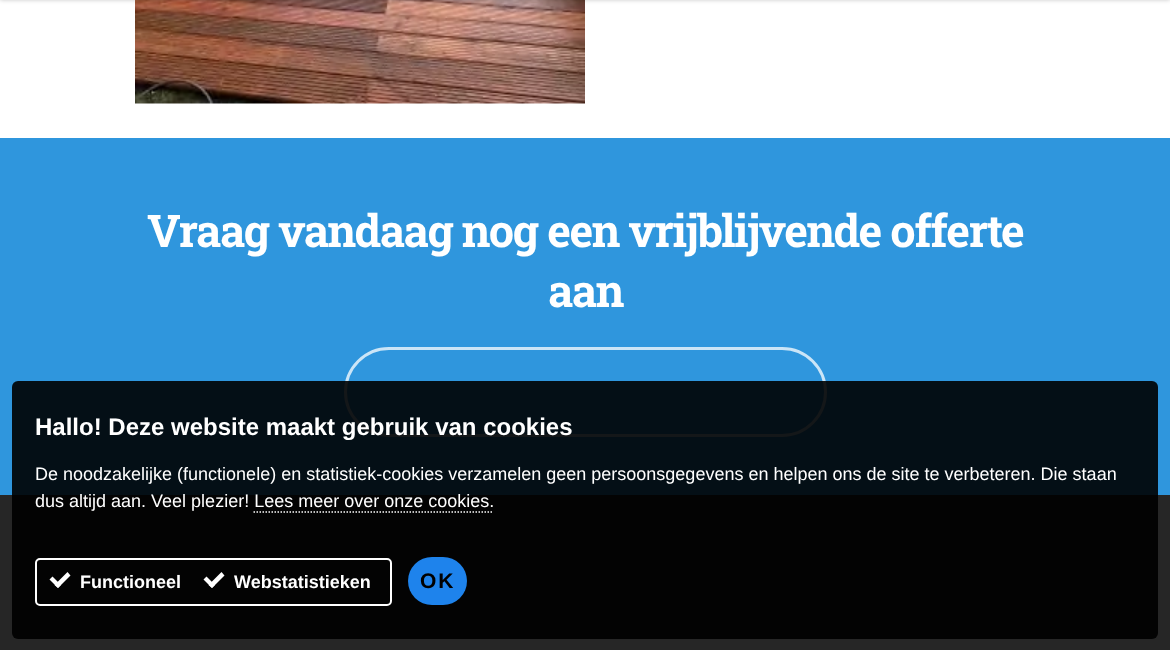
<svg xmlns="http://www.w3.org/2000/svg" width="1170" height="650" viewBox="0 0 1170 650">
  <rect width="100%" height="100%" fill="#262626"/>
  <path d="M0 0h1170v138H0z" fill="#fff"/>
  <image x="135" y="0" width="450" height="104" href="img/1.png"/>
  <path d="M0 -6h1170v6H0z" fill="#00000038" filter="blur(2px)"/>
  <path d="M0 138h1170v357H0z" fill="#2f96dd"/>
  <rect x="345.5" y="348.5" width="480" height="87" rx="43.5" fill="none" stroke="#cbe5f7" stroke-width="3"/>
  <rect x="12" y="381" width="1146" height="258" rx="6" fill="#000000e6"/>
  <path d="M253.5 512H493.5" fill="none" stroke="#fff" stroke-width="1.5" stroke-dasharray="1.5 1.5"/>
  <rect x="36" y="559" width="355" height="46" rx="4" fill="none" stroke="#fff" stroke-width="2"/>
  <path d="M54.5 585L67.5 572L70.5 575.5L58 588Z" fill="#fff"/>
  <path d="M49.5 579.5L52.5 576.5L61 585L58 588Z" fill="#fff"/>
  <path d="M208.5 585L221.5 572L224.5 575.5L212 588Z" fill="#fff"/>
  <path d="M203.5 579.5L206.5 576.5L215 585L212 588Z" fill="#fff"/>
  <rect x="408" y="557" width="59" height="48" rx="24" fill="#1e83ec"/>
  <g font-family="Roboto Slab" font-size="45" font-weight="bold" letter-spacing="-1.5" fill="#fff">
    <text x="147" y="247">Vraag vandaag nog een vrijblijvende offerte</text>
    <text x="548" y="307">aan</text>
  </g>
  <text x="35" y="435" font-family="Liberation Sans" font-size="24" font-weight="bold" fill="#fff">Hallo! Deze website maakt gebruik van cookies</text>
  <g font-family="Liberation Sans" font-size="18" fill="#fff">
    <text x="35" y="480">De noodzakelijke (functionele) en statistiek-cookies verzamelen geen persoonsgegevens en helpen ons de site te verbeteren. Die staan</text>
    <text x="35" y="507">dus altijd aan. Veel plezier! Lees meer over onze cookies.</text>
  </g>
  <g font-family="Liberation Sans" font-size="18" font-weight="bold" fill="#fff">
    <text x="80" y="588">Functioneel</text>
    <text x="234" y="588">Webstatistieken</text>
  </g>
  <text x="420" y="588" font-family="Liberation Sans" font-size="21" font-weight="bold" letter-spacing="2" fill="#000">OK</text>
</svg>
